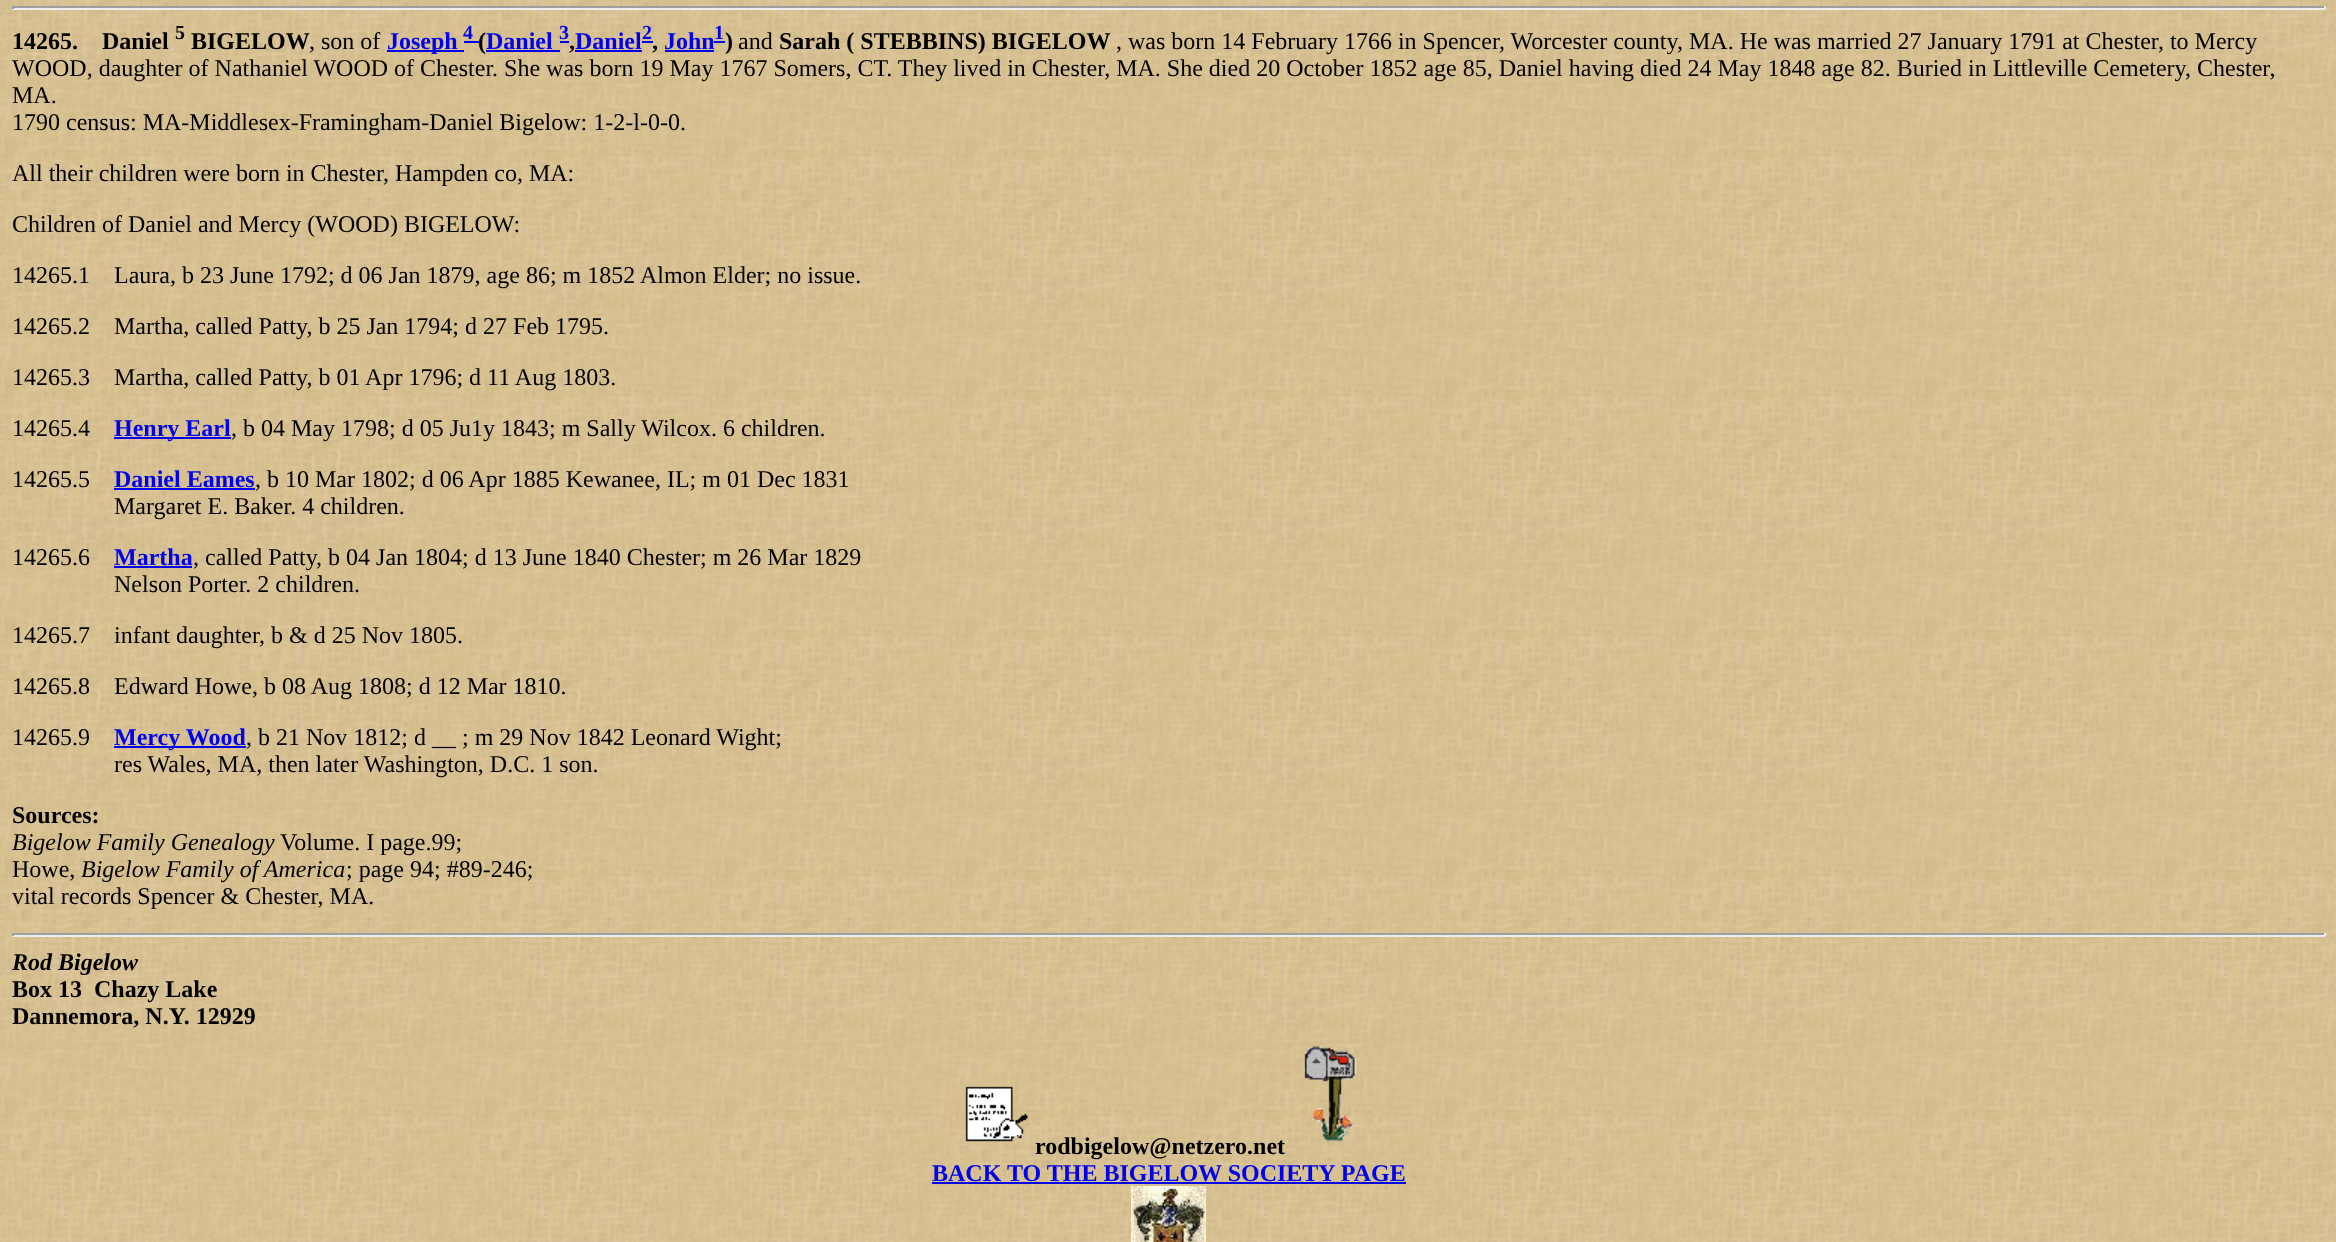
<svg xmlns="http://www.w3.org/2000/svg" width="2336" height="1242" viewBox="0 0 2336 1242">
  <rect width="100%" height="100%" fill="#fff"/>
  <image x="0" y="0" width="2336" height="1242" href="img/1.png"/>
  <path d="M12 6h2313v2H12z" fill="#9f9f9f"/>
  <path d="M2324 6h2v3H2324z" fill="#eee"/>
  <path d="M12 8h2313v2H12z" fill="#eee"/>
  <path d="M12 6h2v3H12z" fill="#9f9f9f"/>
  <path d="M387 50h77v2H387z" fill="#00e"/>
  <path d="M464 41h15v2H464z" fill="#00e"/>
  <path d="M486 50h74v2H486z" fill="#00e"/>
  <path d="M575 50h67v2H575z" fill="#00e"/>
  <path d="M560 41h9v2H560z" fill="#00e"/>
  <path d="M642 41h11v2H642z" fill="#00e"/>
  <path d="M665 50h49v2H665z" fill="#00e"/>
  <path d="M714 41h11v2H714z" fill="#00e"/>
  <path d="M114 437h117v2H114z" fill="#00e"/>
  <path d="M114 488h141v2H114z" fill="#00e"/>
  <path d="M114 566h78v2H114z" fill="#00e"/>
  <path d="M114 746h132v2H114z" fill="#00e"/>
  <path d="M12 933h2313v2H12z" fill="#9f9f9f"/>
  <path d="M2324 933h2v3H2324z" fill="#eee"/>
  <path d="M12 935h2313v2H12z" fill="#eee"/>
  <path d="M12 933h2v3H12z" fill="#9f9f9f"/>
  <image x="965" y="1086" width="63" height="56" href="img/2.png"/>
  <image x="1303" y="1046" width="54" height="96" href="img/3.png"/>
  <path d="M932 1182h474v2H932z" fill="#00e"/>
  <image x="1131" y="1186" width="75" height="56" href="img/4.png"/>
  <text x="12" y="49" font-family="Liberation Serif" font-size="24" font-weight="bold" fill="#000" xml:space="preserve">14265.    Daniel</text>
  <text x="175" y="39" font-family="Liberation Serif" font-size="20" font-weight="bold" fill="#000">5</text>
  <text x="191" y="49" font-family="Liberation Serif" font-size="24" font-weight="bold" fill="#000">BIGELOW</text>
  <text x="309" y="49" font-family="Liberation Serif" font-size="24" fill="#000">, son of</text>
  <text x="387" y="49" font-family="Liberation Serif" font-size="24" font-weight="bold" fill="#00e">Joseph</text>
  <text x="463" y="39" font-family="Liberation Serif" font-size="20" font-weight="bold" fill="#00e">4</text>
  <text x="478" y="49" font-family="Liberation Serif" font-size="24" font-weight="bold" fill="#000">(</text>
  <text x="486" y="49" font-family="Liberation Serif" font-size="24" font-weight="bold" fill="#00e">Daniel</text>
  <text x="559" y="39" font-family="Liberation Serif" font-size="20" font-weight="bold" fill="#00e">3</text>
  <text x="569" y="49" font-family="Liberation Serif" font-size="24" font-weight="bold" fill="#000">,</text>
  <text x="575" y="49" font-family="Liberation Serif" font-size="24" font-weight="bold" fill="#00e">Daniel</text>
  <text x="642" y="39" font-family="Liberation Serif" font-size="20" font-weight="bold" fill="#00e">2</text>
  <text x="652" y="49" font-family="Liberation Serif" font-size="24" font-weight="bold" fill="#000">,</text>
  <text x="664" y="49" font-family="Liberation Serif" font-size="24" font-weight="bold" fill="#00e">John</text>
  <text x="714" y="39" font-family="Liberation Serif" font-size="20" font-weight="bold" fill="#00e">1</text>
  <text x="725" y="49" font-family="Liberation Serif" font-size="24" font-weight="bold" fill="#000">)</text>
  <text x="738" y="49" font-family="Liberation Serif" font-size="24" fill="#000">and</text>
  <text x="779" y="49" font-family="Liberation Serif" font-size="24" font-weight="bold" fill="#000">Sarah ( STEBBINS) BIGELOW</text>
  <g font-family="Liberation Serif" font-size="24" fill="#000">
    <text x="1116" y="49">, was born 14 February 1766 in Spencer, Worcester county, MA. He was married 27 January 1791 at Chester, to Mercy</text>
    <text x="12" y="76">WOOD, daughter of Nathaniel WOOD of Chester. She was born 19 May 1767 Somers, CT. They lived in Chester, MA. She died 20 October 1852 age 85, Daniel having died 24 May 1848 age 82. Buried in Littleville Cemetery, Chester,</text>
    <text x="12" y="103">MA.</text>
    <text x="12" y="130">1790 census: MA-Middlesex-Framingham-Daniel Bigelow: 1-2-l-0-0.</text>
    <text x="12" y="181">All their children were born in Chester, Hampden co, MA:</text>
    <text x="12" y="232">Children of Daniel and Mercy (WOOD) BIGELOW:</text>
    <text x="12" y="283" xml:space="preserve">14265.1    Laura, b 23 June 1792; d 06 Jan 1879, age 86; m 1852 Almon Elder; no issue.</text>
    <text x="12" y="334" xml:space="preserve">14265.2    Martha, called Patty, b 25 Jan 1794; d 27 Feb 1795.</text>
    <text x="12" y="385" xml:space="preserve">14265.3    Martha, called Patty, b 01 Apr 1796; d 11 Aug 1803.</text>
    <text x="12" y="436">14265.4</text>
  </g>
  <text x="114" y="436" font-family="Liberation Serif" font-size="24" font-weight="bold" fill="#00e">Henry Earl</text>
  <g font-family="Liberation Serif" font-size="24" fill="#000">
    <text x="231" y="436">, b 04 May 1798; d 05 Ju1y 1843; m Sally Wilcox. 6 children.</text>
    <text x="12" y="487">14265.5</text>
  </g>
  <text x="114" y="487" font-family="Liberation Serif" font-size="24" font-weight="bold" fill="#00e">Daniel Eames</text>
  <g font-family="Liberation Serif" font-size="24" fill="#000">
    <text x="255" y="487">, b 10 Mar 1802; d 06 Apr 1885 Kewanee, IL; m 01 Dec 1831</text>
    <text x="114" y="514">Margaret E. Baker. 4 children.</text>
    <text x="12" y="565">14265.6</text>
  </g>
  <text x="114" y="565" font-family="Liberation Serif" font-size="24" font-weight="bold" fill="#00e">Martha</text>
  <g font-family="Liberation Serif" font-size="24" fill="#000">
    <text x="193" y="565">, called Patty, b 04 Jan 1804; d 13 June 1840 Chester; m 26 Mar 1829</text>
    <text x="114" y="592">Nelson Porter. 2 children.</text>
    <text x="12" y="643" xml:space="preserve">14265.7    infant daughter, b &amp; d 25 Nov 1805.</text>
    <text x="12" y="694" xml:space="preserve">14265.8    Edward Howe, b 08 Aug 1808; d 12 Mar 1810.</text>
    <text x="12" y="745">14265.9</text>
  </g>
  <text x="114" y="745" font-family="Liberation Serif" font-size="24" font-weight="bold" fill="#00e">Mercy Wood</text>
  <g font-family="Liberation Serif" font-size="24" fill="#000">
    <text x="246" y="745">, b 21 Nov 1812; d __ ; m 29 Nov 1842 Leonard Wight;</text>
    <text x="114" y="772">res Wales, MA, then later Washington, D.C. 1 son.</text>
  </g>
  <text x="12" y="823" font-family="Liberation Serif" font-size="24" font-weight="bold" fill="#000">Sources:</text>
  <text x="12" y="850" font-family="Liberation Serif" font-size="24" font-style="italic" fill="#000">Bigelow Family Genealogy</text>
  <g font-family="Liberation Serif" font-size="24" fill="#000">
    <text x="280" y="850">Volume. I page.99;</text>
    <text x="12" y="877">Howe,</text>
  </g>
  <text x="81" y="877" font-family="Liberation Serif" font-size="24" font-style="italic" fill="#000">Bigelow Family of America</text>
  <g font-family="Liberation Serif" font-size="24" fill="#000">
    <text x="346" y="877">; page 94; #89-246;</text>
    <text x="12" y="904">vital records Spencer &amp; Chester, MA.</text>
  </g>
  <text x="12" y="970" font-family="Liberation Serif" font-size="24" font-weight="bold" font-style="italic" fill="#000">Rod Bigelow</text>
  <g font-family="Liberation Serif" font-size="24" font-weight="bold" fill="#000">
    <text x="12" y="997" xml:space="preserve">Box 13  Chazy Lake</text>
    <text x="12" y="1024">Dannemora, N.Y. 12929</text>
    <text x="1035" y="1154">rodbigelow@netzero.net</text>
  </g>
  <text x="932" y="1181" font-family="Liberation Serif" font-size="24" font-weight="bold" fill="#00e">BACK TO THE BIGELOW SOCIETY PAGE</text>
</svg>
